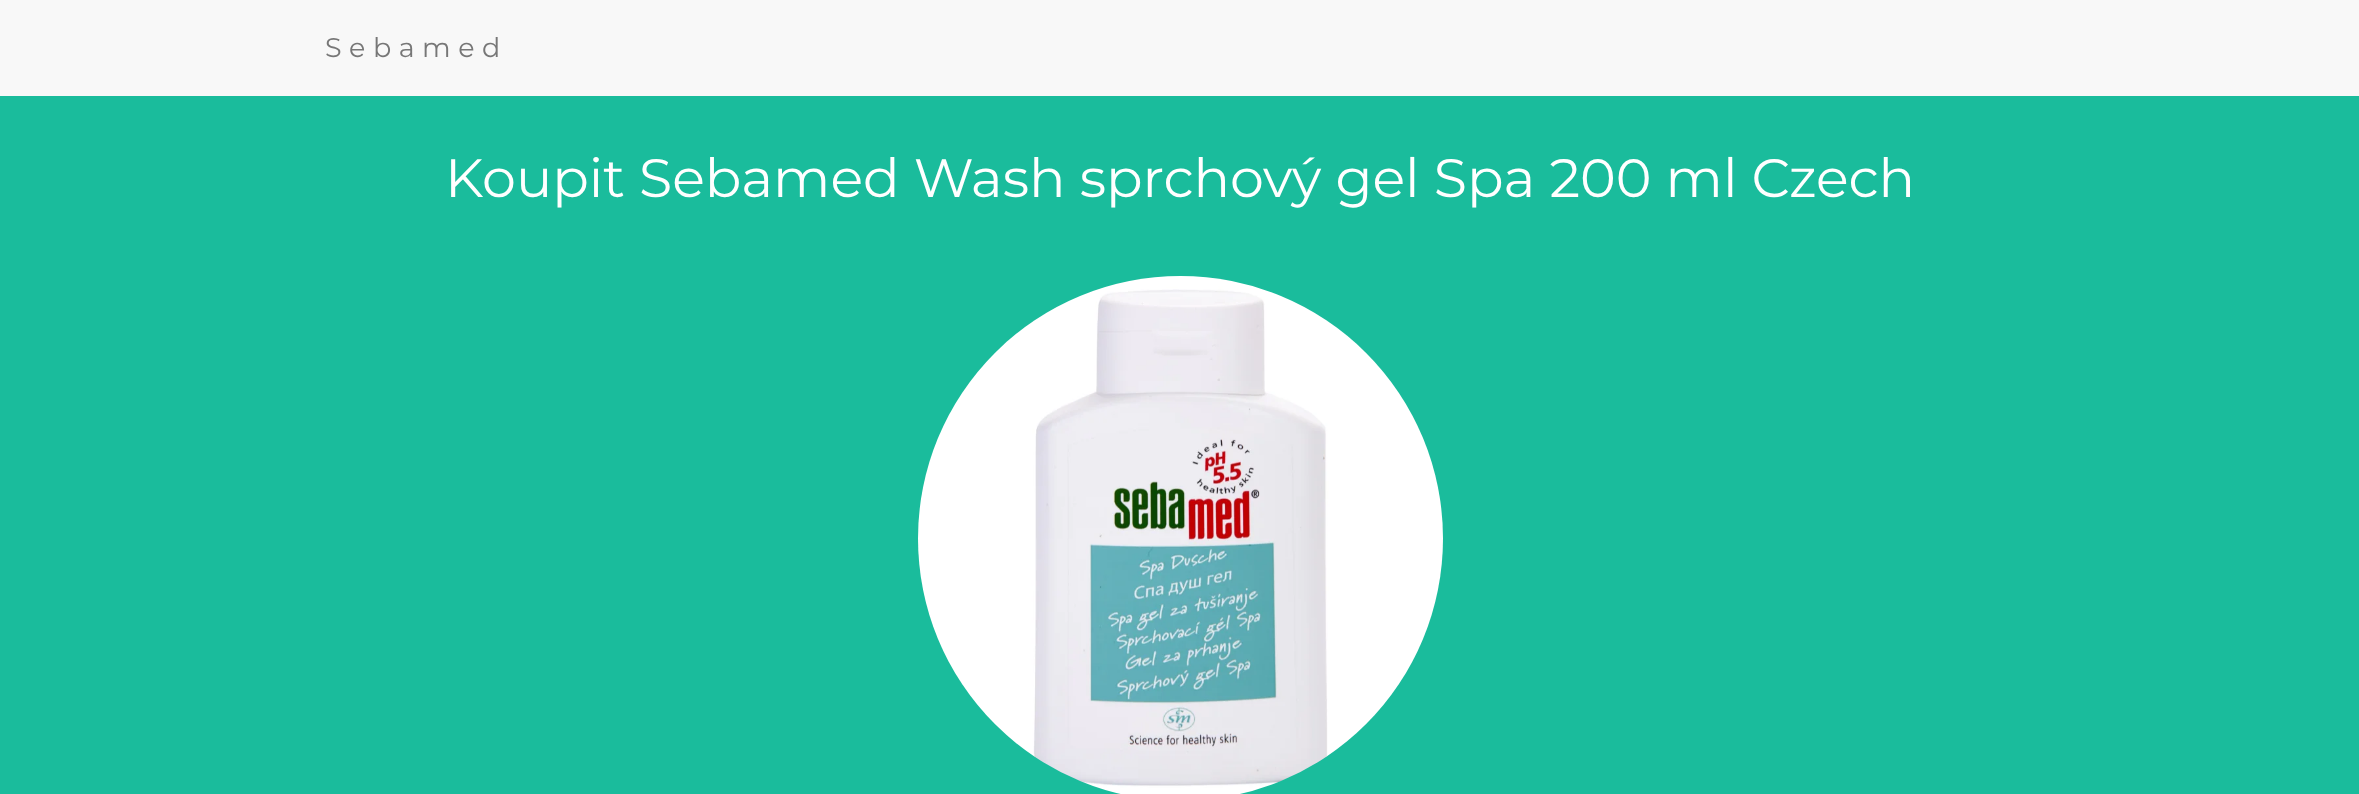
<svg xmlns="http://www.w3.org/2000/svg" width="2359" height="794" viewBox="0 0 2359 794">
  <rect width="100%" height="100%" fill="#1abc9c"/>
  <path d="M0 0h2359v96H0z" fill="#f8f8f8"/>
  <image x="918" y="276" width="525" height="518" href="img/1.png"/>
  <text x="325" y="57" font-family="Montserrat" font-size="27" font-weight="100" letter-spacing="7.5" fill="#777">Sebamed</text>
  <text x="445" y="197" font-family="Montserrat" font-size="54" font-weight="100" fill="#fff">Koupit Sebamed Wash sprchový gel Spa 200 ml Czech</text>
</svg>
